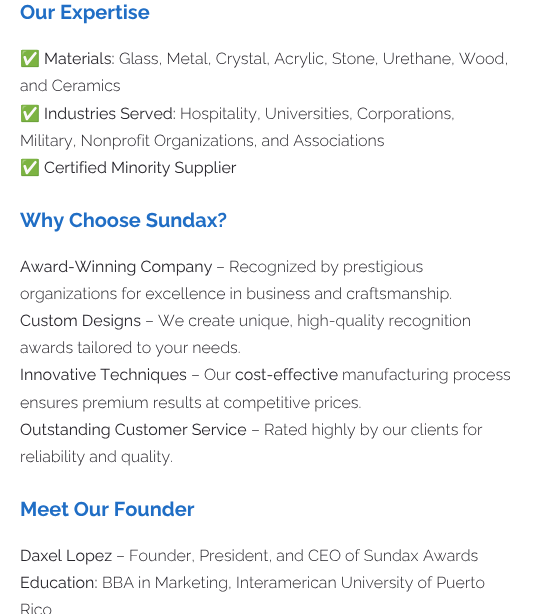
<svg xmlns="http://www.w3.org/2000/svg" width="534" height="614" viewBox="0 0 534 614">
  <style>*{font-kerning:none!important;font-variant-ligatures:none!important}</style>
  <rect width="100%" height="100%" fill="#fff"/>
  <text x="20" y="19" font-family="Raleway" font-size="20" font-weight="bold" fill="#206ec5">Our Expertise</text>
  <text x="20" y="64" font-family="Noto Color Emoji" font-size="16" fill="#28262c">✅</text>
  <text x="44" y="64" font-family="Raleway" font-size="16" fill="#28262c">Materials:</text>
  <g font-family="Raleway" font-size="16" font-weight="300" fill="#28262c">
    <text x="119" y="64">Glass, Metal, Crystal, Acrylic, Stone, Urethane, Wood,</text>
    <text x="20" y="91">and Ceramics</text>
  </g>
  <text x="20" y="119" font-family="Noto Color Emoji" font-size="16" fill="#28262c">✅</text>
  <text x="44" y="119" font-family="Raleway" font-size="16" fill="#28262c">Industries Served:</text>
  <g font-family="Raleway" font-size="16" font-weight="300" fill="#28262c">
    <text x="180" y="119">Hospitality, Universities, Corporations,</text>
    <text x="20" y="146">Military, Nonprofit Organizations, and Associations</text>
  </g>
  <text x="20" y="173" font-family="Noto Color Emoji" font-size="16" fill="#28262c">✅</text>
  <text x="44" y="173" font-family="Raleway" font-size="16" fill="#28262c">Certified Minority Supplier</text>
  <text x="20" y="227" font-family="Raleway" font-size="20" font-weight="bold" fill="#206ec5">Why Choose Sundax?</text>
  <text x="20" y="272" font-family="Raleway" font-size="16" fill="#28262c">Award-Winning Company</text>
  <g font-family="Raleway" font-size="16" font-weight="300" fill="#28262c">
    <text x="216" y="272">– Recognized by prestigious</text>
    <text x="20" y="299">organizations for excellence in business and craftsmanship.</text>
  </g>
  <text x="20" y="326" font-family="Raleway" font-size="16" fill="#28262c">Custom Designs</text>
  <g font-family="Raleway" font-size="16" font-weight="300" fill="#28262c">
    <text x="145" y="326">– We create unique, high-quality recognition</text>
    <text x="20" y="353">awards tailored to your needs.</text>
  </g>
  <text x="20" y="380" font-family="Raleway" font-size="16" fill="#28262c">Innovative Techniques</text>
  <text x="191" y="380" font-family="Raleway" font-size="16" font-weight="300" fill="#28262c">– Our</text>
  <text x="235" y="380" font-family="Raleway" font-size="16" fill="#28262c">cost-effective</text>
  <g font-family="Raleway" font-size="16" font-weight="300" fill="#28262c">
    <text x="342" y="380">manufacturing process</text>
    <text x="20" y="408">ensures premium results at competitive prices.</text>
  </g>
  <text x="20" y="435" font-family="Raleway" font-size="16" fill="#28262c">Outstanding Customer Service</text>
  <g font-family="Raleway" font-size="16" font-weight="300" fill="#28262c">
    <text x="251" y="435">– Rated highly by our clients for</text>
    <text x="20" y="462">reliability and quality.</text>
  </g>
  <text x="20" y="516" font-family="Raleway" font-size="20" font-weight="bold" fill="#206ec5">Meet Our Founder</text>
  <text x="20" y="561" font-family="Raleway" font-size="16" fill="#28262c">Daxel Lopez</text>
  <text x="116" y="561" font-family="Raleway" font-size="16" font-weight="300" fill="#28262c">– Founder, President, and CEO of Sundax</text>
  <text x="423" y="561" font-family="Raleway" font-size="16" font-weight="300" fill="#28262c">Awards</text>
  <text x="20" y="588" font-family="Raleway" font-size="16" fill="#28262c">Education:</text>
  <g font-family="Raleway" font-size="16" font-weight="300" fill="#28262c">
    <text x="102" y="588">BBA in Marketing, Interamerican University of Puerto</text>
    <text x="20" y="615">Rico</text>
  </g>
</svg>
